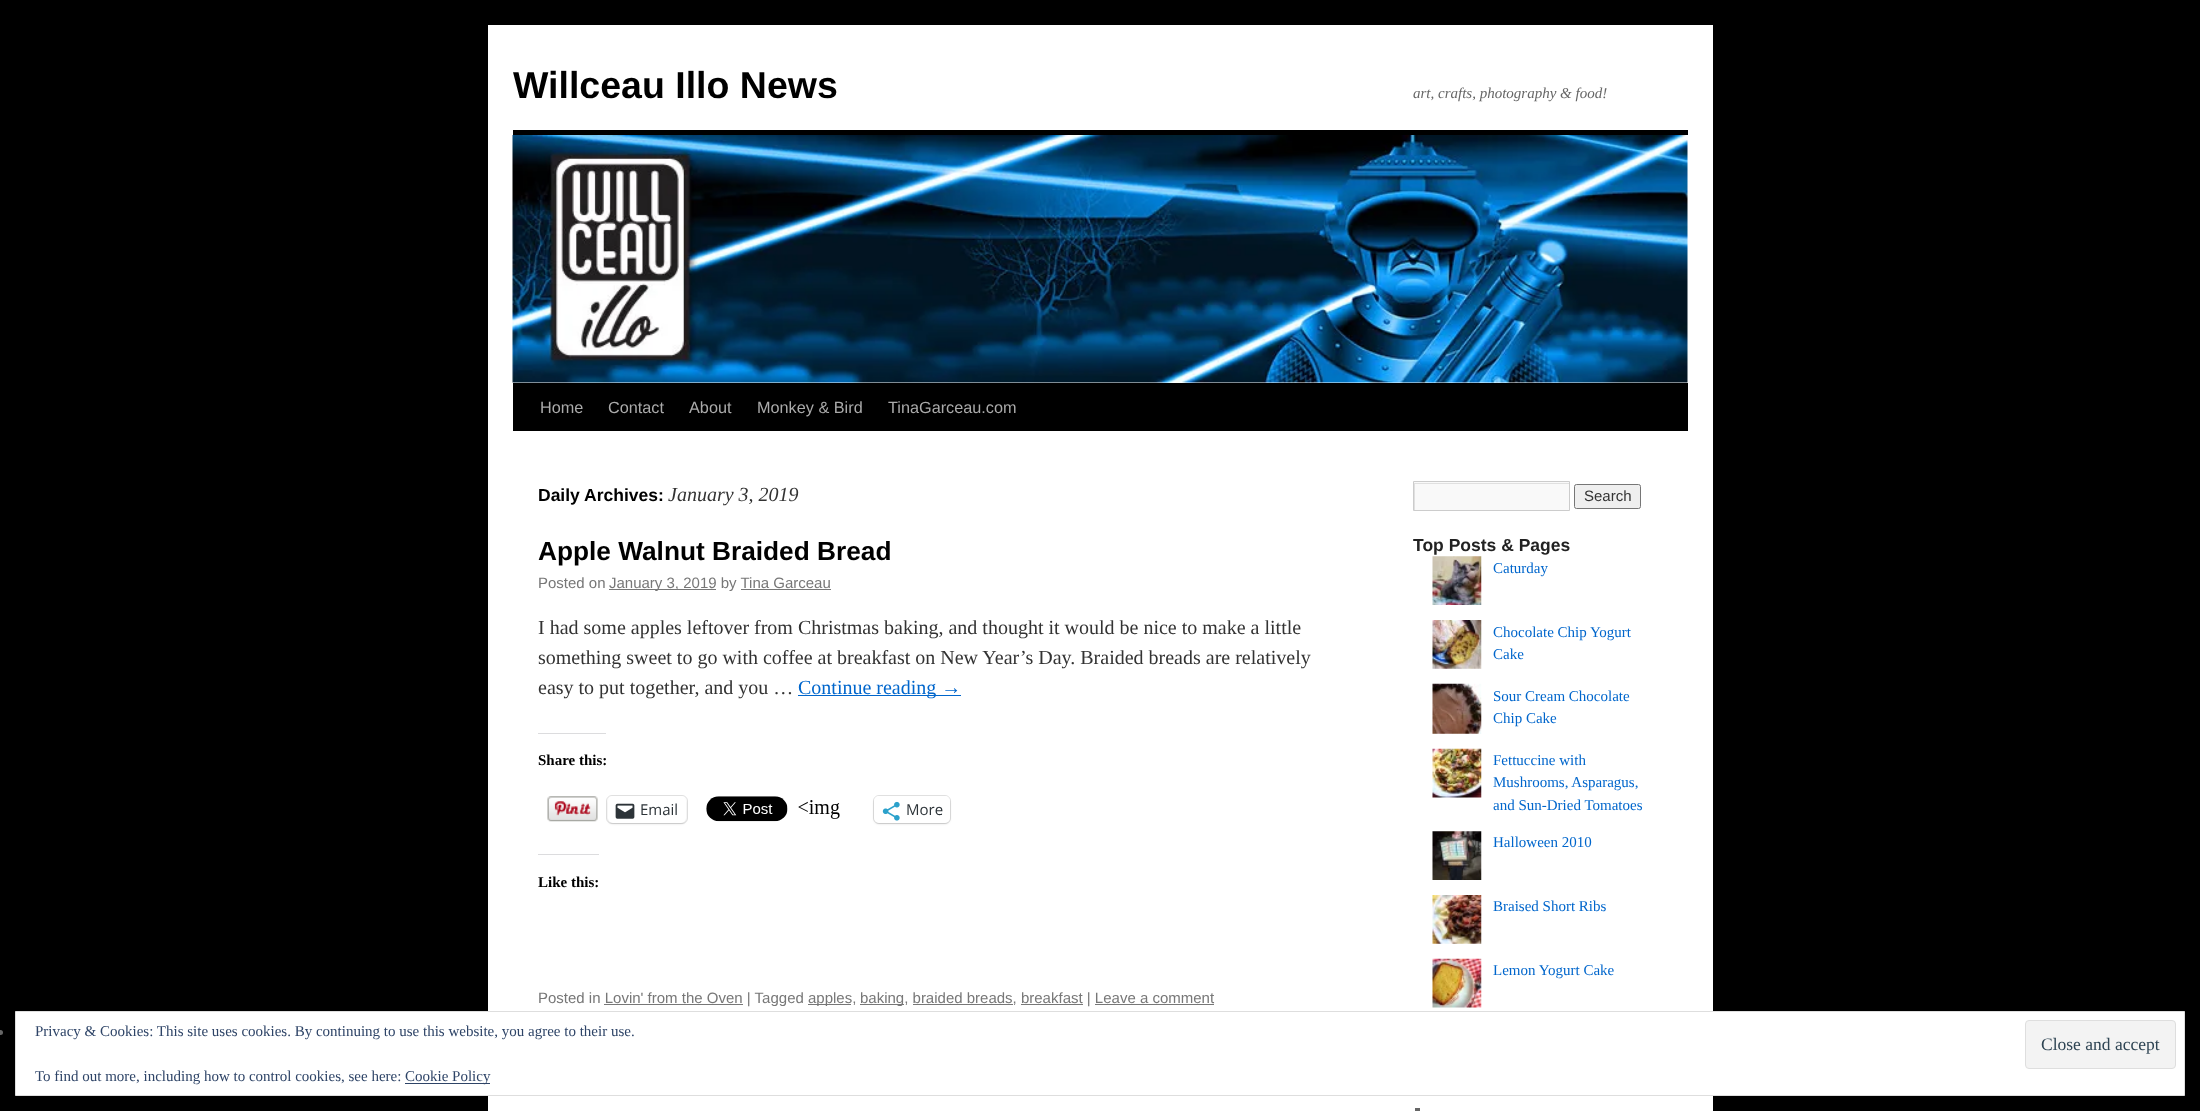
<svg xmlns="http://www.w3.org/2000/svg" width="2200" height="1111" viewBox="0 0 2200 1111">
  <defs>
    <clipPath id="clip1"><path d="M1414 483h155v27H1414z"/></clipPath>
  </defs>
  <rect width="100%" height="100%" fill="#000"/>
  <path d="M488 25h1225v1086H488z" fill="#fff"/>
  <path d="M513 130h1175v5H513z" fill="#000"/>
  <path d="M513 383h1175v48H513z" fill="#000"/>
  <image x="512" y="135" width="1176" height="248" href="img/1.png"/>
  <path d="M609 589h107v1H609z" fill="#777"/>
  <path d="M741 589h90v1H741z" fill="#777"/>
  <path d="M798 695h163v1H798z" fill="#06c"/>
  <path d="M538 733h68v1H538z" fill="#dcdcde"/>
  <image x="547" y="796" width="51" height="26" href="img/2.png"/>
  <rect x="606.5" y="795.5" width="81" height="28" rx="5.5" fill="none" stroke="#e0e0e0"/>
  <rect x="608" y="798" width="78" height="26" rx="5" fill="#0000001f" filter="blur(1px)"/>
  <rect x="608" y="796" width="78" height="27" rx="5" fill="#fff"/>
  <image x="615" y="803" width="20" height="16" href="img/3.png"/>
  <image x="706" y="796" width="82" height="26" href="img/4.png"/>
  <image x="798" y="800" width="42" height="19" href="img/5.png"/>
  <rect x="873.5" y="795.5" width="77" height="28" rx="5.5" fill="none" stroke="#e0e0e0"/>
  <rect x="874" y="798" width="76" height="26" rx="5" fill="#0000001f" filter="blur(1px)"/>
  <rect x="874" y="796" width="76" height="27" rx="5" fill="#fff"/>
  <image x="882" y="801" width="18" height="20" href="img/6.png"/>
  <path d="M538 854h61v1H538z" fill="#dcdcde"/>
  <path d="M604 1004h139v1H604z" fill="#777"/>
  <path d="M808 1004h43v1H808z" fill="#777"/>
  <path d="M860 1004h44v1H860z" fill="#777"/>
  <path d="M913 1004h100v1H913z" fill="#777"/>
  <path d="M1021 1004h62v1H1021z" fill="#777"/>
  <path d="M1095 1004h119v1H1095z" fill="#777"/>
  <path d="M1414 482h155v28H1414z" fill="#f9f9f9"/>
  <g clip-path="url(#clip1)">
    <path d="M1290 359H1692V634H1290ZM1415 484H1570V511H1415Z" fill="#e0e0e0" fill-rule="evenodd"/>
  </g>
  <path d="M1413.5 481.5h156v29H1413.5z" fill="none" stroke="#ccc"/>
  <rect x="1574.5" y="484.5" width="66" height="24" rx="2" fill="#efefef" stroke="#767676"/>
  <image x="1432" y="556" width="50" height="49" href="img/7.png"/>
  <image x="1432" y="620" width="50" height="49" href="img/8.png"/>
  <image x="1432" y="683" width="50" height="51" href="img/9.png"/>
  <image x="1432" y="748" width="50" height="50" href="img/10.png"/>
  <image x="1432" y="831" width="50" height="49" href="img/11.png"/>
  <image x="1432" y="895" width="50" height="49" href="img/12.png"/>
  <image x="1432" y="958" width="50" height="50" href="img/13.png"/>
  <path d="M1415 1108h5v3H1415z" fill="#666"/>
  <circle cx="0.5" cy="1032.5" r="2.5" fill="#666"/>
  <path d="M15.5 1011.5h2169v84H15.5z" fill="#fff" stroke="#dedede"/>
  <rect x="2025.5" y="1020.5" width="150" height="48" rx="3.5" fill="#f3f3f3" stroke="#dedede"/>
  <path d="M405 1083h85v1H405z" fill="#2e4467"/>
  <text x="513" y="98" font-family="Liberation Sans" font-size="37.5" font-weight="bold" fill="#000">Willceau Illo News</text>
  <text x="1413" y="98" font-family="Liberation Serif" font-size="15" font-style="italic" fill="#666">art, crafts, photography &amp; food!</text>
  <g font-family="Liberation Sans" font-size="16.25" fill="#aaa">
    <text x="540" y="413">Home</text>
    <text x="608" y="413">Contact</text>
    <text x="689" y="413">About</text>
    <text x="757" y="413">Monkey &amp; Bird</text>
    <text x="888" y="413">TinaGarceau.com</text>
  </g>
  <text x="538" y="501" font-family="Liberation Sans" font-size="17.5" font-weight="bold" fill="#000">Daily Archives:</text>
  <text x="668" y="501" font-family="Liberation Serif" font-size="20" font-style="italic" fill="#333">January 3, 2019</text>
  <text x="538" y="560" font-family="Liberation Sans" font-size="26.25" font-weight="bold" fill="#000">Apple Walnut Braided Bread</text>
  <g font-family="Liberation Sans" font-size="15" fill="#777">
    <text x="538" y="588">Posted on</text>
    <text x="609" y="588">January 3, 2019 by Tina Garceau</text>
  </g>
  <g font-family="Liberation Serif" font-size="20" fill="#333">
    <text x="538" y="634">I had some apples leftover from Christmas baking, and thought it would be nice to make a little</text>
    <text x="538" y="664">something sweet to go with coffee at breakfast on New Year’s Day. Braided breads are relatively</text>
    <text x="538" y="694">easy to put together, and you …</text>
  </g>
  <text x="798" y="694" font-family="Liberation Serif" font-size="20" fill="#06c">Continue reading →</text>
  <text x="538" y="765" font-family="Liberation Serif" font-size="15" font-weight="bold" fill="#000">Share this:</text>
  <g font-family="Open Sans" font-size="15" fill="#2c3338">
    <text x="640" y="815">Email</text>
    <text x="906" y="815">More</text>
  </g>
  <text x="538" y="887" font-family="Liberation Serif" font-size="15" font-weight="bold" fill="#000">Like this:</text>
  <g font-family="Liberation Sans" font-size="15" fill="#777">
    <text x="538" y="1003">Posted in Lovin' from the Oven | Tagged</text>
    <text x="808" y="1003">apples,</text>
    <text x="860" y="1003">baking, braided breads, breakfast | Leave a comment</text>
  </g>
  <text x="1584" y="501" font-family="Liberation Sans" font-size="15" fill="#333">Search</text>
  <text x="1413" y="551" font-family="Liberation Sans" font-size="17.5" font-weight="bold" fill="#222">Top Posts &amp; Pages</text>
  <g font-family="Liberation Serif" font-size="15" fill="#06c">
    <text x="1493" y="573">Caturday</text>
    <text x="1493" y="637">Chocolate Chip Yogurt</text>
    <text x="1493" y="659">Cake</text>
    <text x="1493" y="701">Sour Cream Chocolate</text>
    <text x="1493" y="723">Chip Cake</text>
    <text x="1493" y="765">Fettuccine with</text>
    <text x="1493" y="787">Mushrooms, Asparagus,</text>
    <text x="1493" y="810">and Sun-Dried Tomatoes</text>
    <text x="1493" y="847">Halloween 2010</text>
    <text x="1493" y="911">Braised Short Ribs</text>
    <text x="1493" y="975">Lemon Yogurt Cake</text>
  </g>
  <text x="35" y="1036" font-family="Liberation Serif" font-size="15" fill="#2e4467">Privacy &amp; Cookies: This site uses cookies. By continuing to use this website, you agree to their use.</text>
  <text x="2041" y="1050" font-family="Liberation Serif" font-size="17.5" fill="#2e4453">Close and accept</text>
  <g font-family="Liberation Serif" font-size="15" fill="#2e4467">
    <text x="35" y="1081">To find out more, including how to control cookies, see here:</text>
    <text x="405" y="1081">Cookie Policy</text>
  </g>
</svg>
